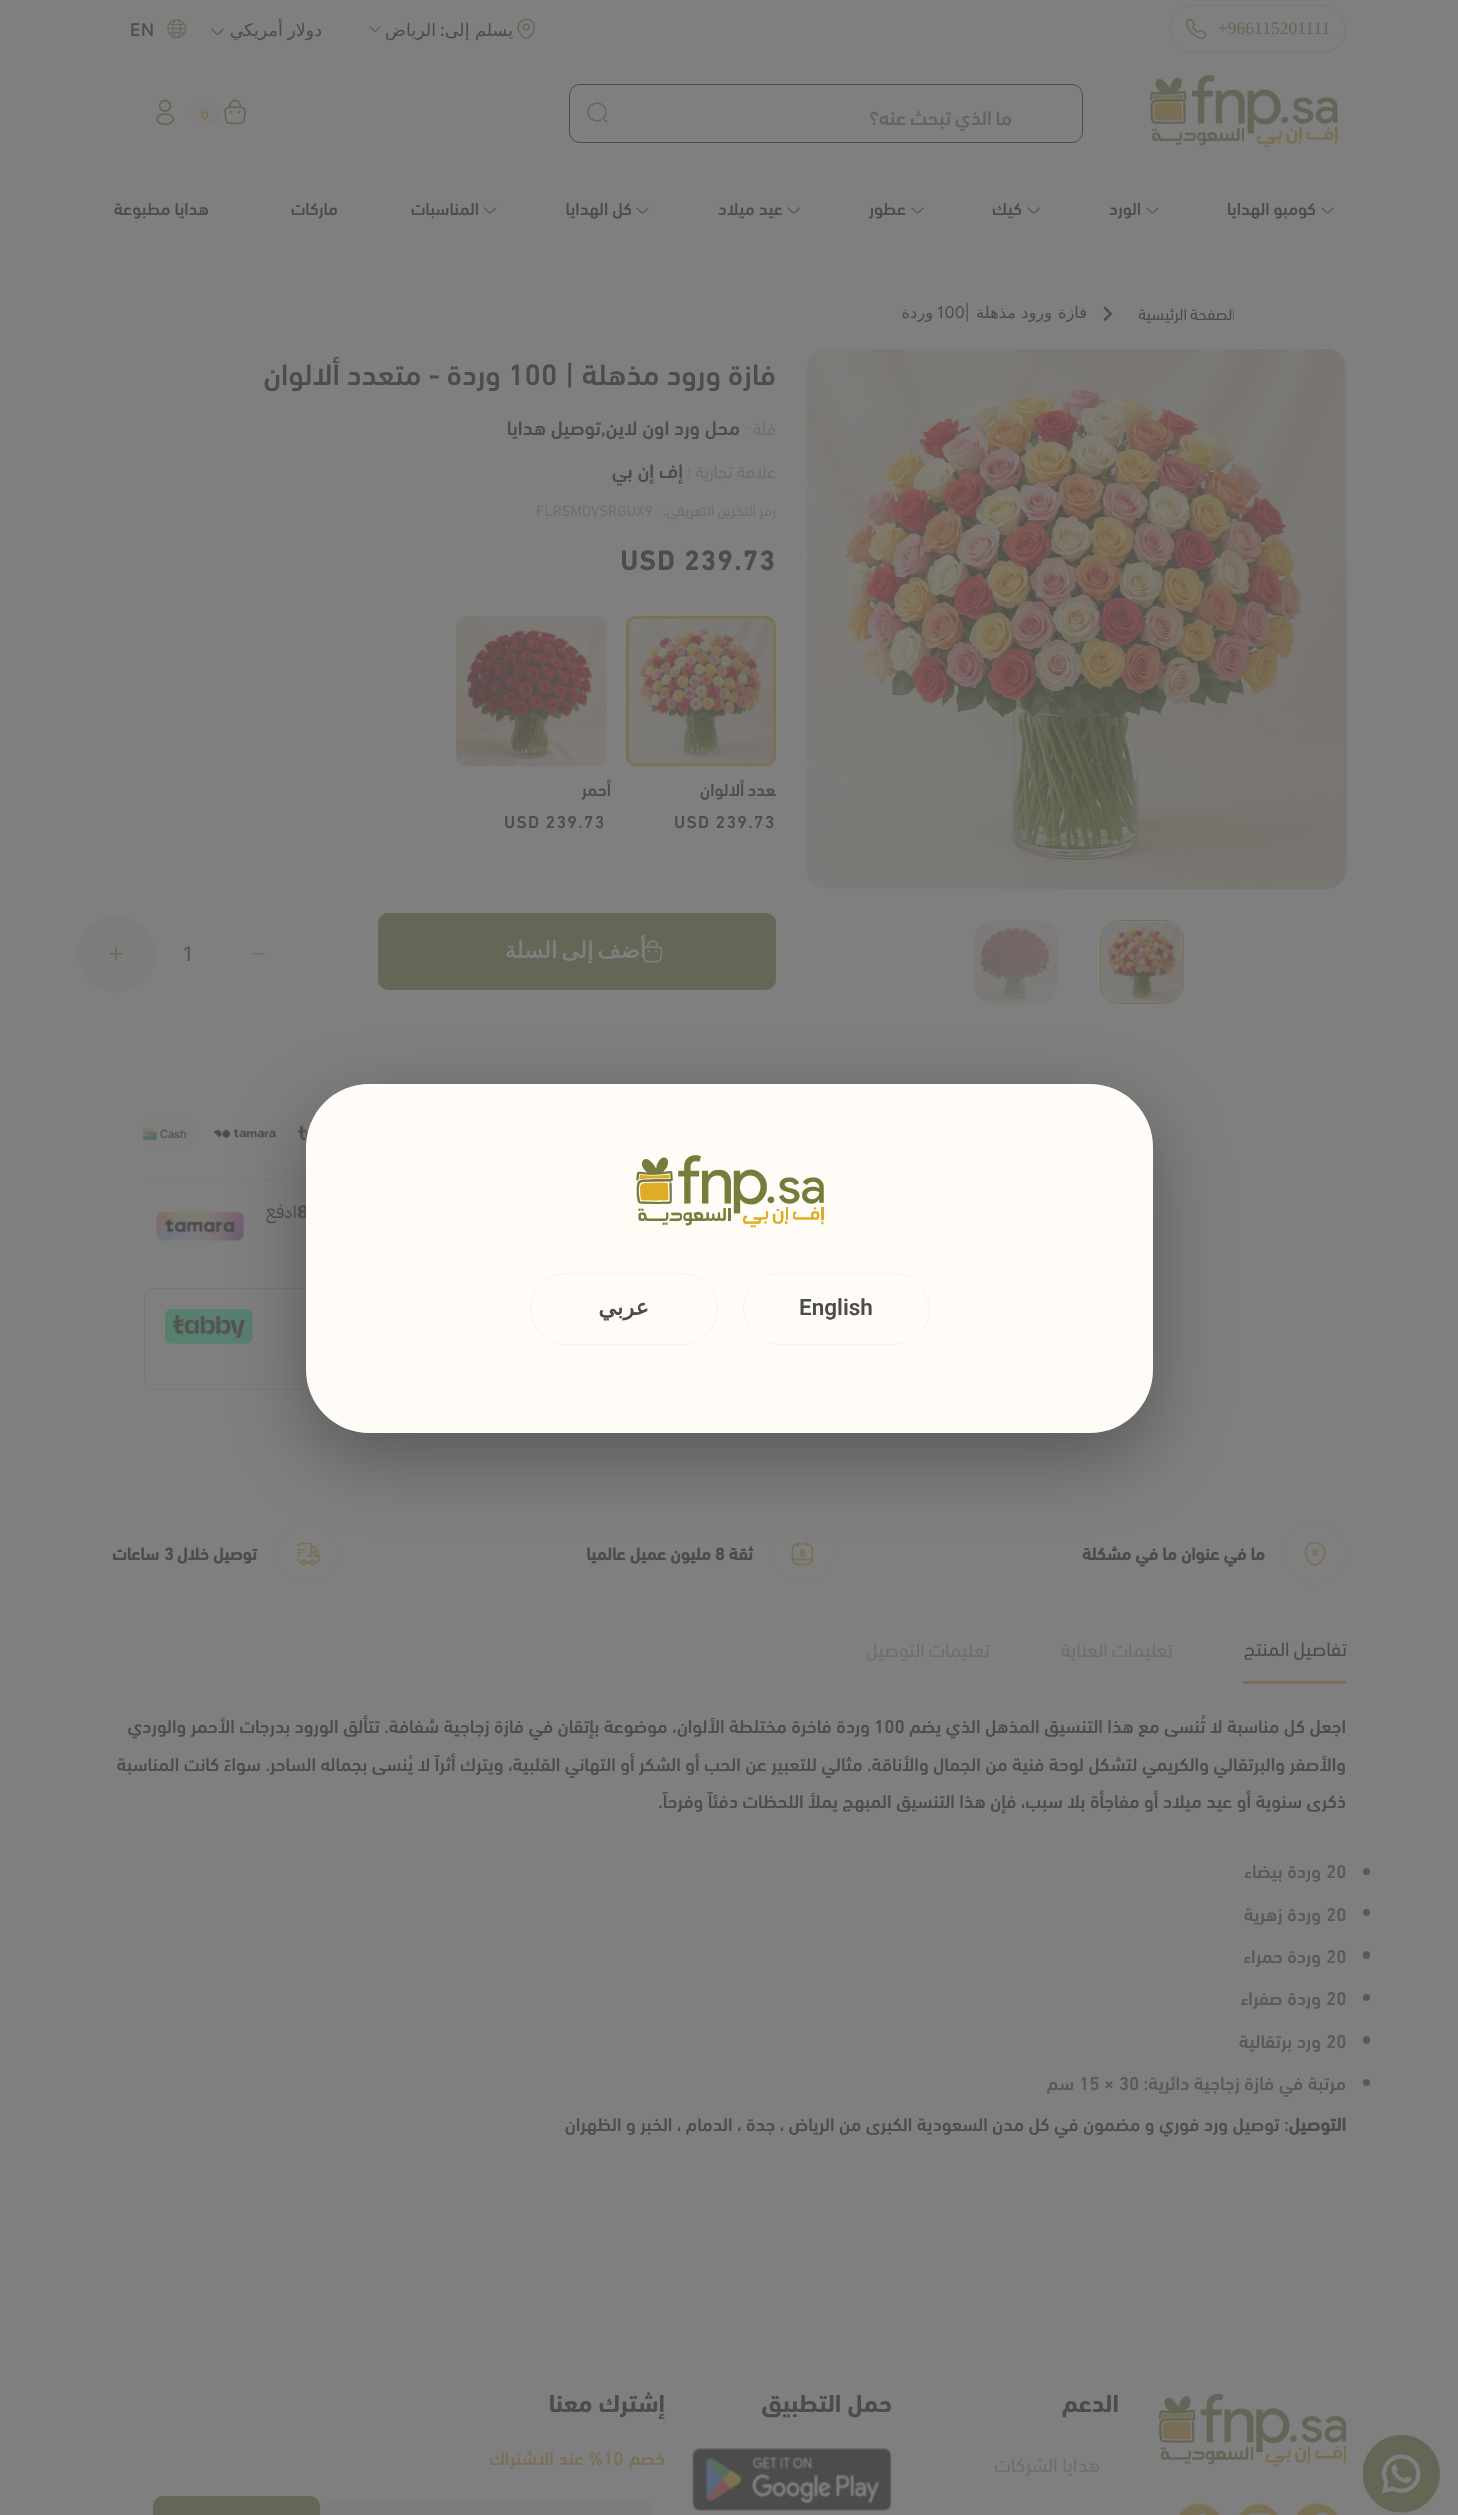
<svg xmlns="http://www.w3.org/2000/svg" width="1458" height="2515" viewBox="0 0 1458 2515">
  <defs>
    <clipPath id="clip1"><path d="M900 295h334v34H900z"/></clipPath>
    <clipPath id="clip2"><path d="M113 616h663v245H113z"/></clipPath>
  </defs>
  <rect width="100%" height="100%" fill="#7f7f7f"/>
  <rect x="1169.5" y="5.5" width="176" height="47" rx="23.5" fill="none" stroke="#777773"/>
  <image x="1186" y="18" width="21" height="21" href="img/1.png"/>
  <image x="517" y="18" width="18" height="21" href="img/2.png"/>
  <image x="369" y="26" width="12" height="6" href="img/3.png"/>
  <image x="211" y="28" width="13" height="7" href="img/4.png"/>
  <image x="167" y="19" width="20" height="20" href="img/5.png"/>
  <image x="1150" y="75" width="188" height="73" href="img/6.png"/>
  <image x="587" y="102" width="21" height="21" href="img/7.png"/>
  <rect x="569.5" y="84.5" width="513" height="58" rx="10.5" fill="none" stroke="#4c4c4c"/>
  <image x="224" y="99" width="22" height="26" href="img/8.png"/>
  <path d="M203 102.5H207C214 102.5 220 107 220 112V115.5C220 120.5 214 125 207 125H203C196 125 190 120.5 190 115.5V112C190 107 196 102.5 203 102.5Z" fill="#7e7d7b"/>
  <image x="156" y="99" width="19" height="27" href="img/9.png"/>
  <image x="1321" y="207" width="13" height="7" href="img/10.png"/>
  <image x="1146" y="207" width="13" height="7" href="img/10.png"/>
  <image x="1027" y="207" width="13" height="7" href="img/11.png"/>
  <image x="911" y="207" width="13" height="7" href="img/10.png"/>
  <image x="787" y="207" width="13" height="7" href="img/11.png"/>
  <image x="636" y="207" width="13" height="7" href="img/10.png"/>
  <image x="483" y="207" width="14" height="7" href="img/12.png"/>
  <image x="1103" y="306" width="10" height="16" href="img/13.png"/>
  <image x="807" y="349" width="540" height="540" href="img/14.png"/>
  <rect x="1100.5" y="920.5" width="83" height="83" rx="19.5" fill="none" stroke="#796f54"/>
  <image x="1101" y="921" width="82" height="82" href="img/15.png"/>
  <image x="974" y="920" width="84" height="85" href="img/16.png"/>
  <rect x="627.5" y="617.5" width="147" height="147" rx="8.5" fill="none" stroke="#7b704e" stroke-width="3"/>
  <image x="628" y="618" width="147" height="147" href="img/17.png"/>
  <image x="456" y="616" width="151" height="151" href="img/18.png"/>
  <rect x="378" y="913" width="398" height="77" rx="10" fill="#656656"/>
  <image x="252" y="953" width="14" height="2" href="img/20.png"/>
  <rect x="78" y="915" width="77" height="78" rx="38.5" fill="#7c7d7b"/>
  <image x="109" y="947" width="14" height="14" href="img/21.png"/>
  <image x="297" y="1124" width="14" height="20" href="img/22.png"/>
  <image x="213" y="1129" width="63" height="9" href="img/23.png"/>
  <image x="143" y="1118" width="51" height="32" href="img/24.png"/>
  <path d="M144 1179h162v1H144z" fill="#797979"/>
  <image x="156" y="1211" width="88" height="31" href="img/25.png"/>
  <rect x="144.5" y="1288.5" width="600" height="101" rx="8.5" fill="none" stroke="#777776"/>
  <image x="165" y="1309" width="88" height="35" href="img/26.png"/>
  <image x="1284" y="1523" width="62" height="62" href="img/27.png"/>
  <image x="771" y="1523" width="63" height="61" href="img/28.png"/>
  <image x="276" y="1523" width="63" height="61" href="img/29.png"/>
  <path d="M1243 1681h103v3H1243z" fill="#796f54"/>
  <circle cx="1366.5" cy="1871.5" r="3.5" fill="#57595c"/>
  <circle cx="1366.5" cy="1912.5" r="3.5" fill="#57595c"/>
  <rect x="1363" y="1951" width="7" height="8" rx="3.5" fill="#57595c"/>
  <circle cx="1366.5" cy="1997.5" r="3.5" fill="#57595c"/>
  <rect x="1363" y="2036" width="7" height="8" rx="3.5" fill="#57595c"/>
  <circle cx="1366.5" cy="2082.5" r="3.5" fill="#57595c"/>
  <rect x="306" y="1109" width="847" height="349" rx="63" fill="#0000004d" filter="blur(37.5px)"/>
  <image x="1363" y="2435" width="77" height="78" href="img/31.png"/>
  <image x="1159" y="2393" width="187" height="74" href="img/32.png"/>
  <image x="1296" y="2503" width="42" height="12" href="img/33.png"/>
  <image x="1239" y="2503" width="40" height="12" href="img/34.png"/>
  <image x="1179" y="2503" width="41" height="12" href="img/35.png"/>
  <image x="692" y="2448" width="200" height="63" href="img/36.png"/>
  <rect x="321" y="2498" width="332" height="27" rx="10" fill="#7c7d7b"/>
  <rect x="153" y="2496" width="167" height="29" rx="10" fill="#656656"/>
  <text x="1218" y="34" font-family="Liberation Serif" font-size="17.5" fill="#656656">+966115201111</text>
  <text x="513" y="36" font-family="DejaVu Sans" font-size="17.5" direction="rtl" fill="#4c4c4c">يسلم إلى</text>
  <text x="445" y="36" font-family="Inter" font-size="17.5" font-weight="500" direction="rtl" fill="#4c4c4c">:</text>
  <g font-family="DejaVu Sans" font-size="17.5" direction="rtl" fill="#4c4c4c">
    <text x="436" y="36">الرياض</text>
    <text x="322" y="36" word-spacing="-1">دولار أمريكي</text>
  </g>
  <text x="130" y="36" font-family="Inter" font-size="17.5" font-weight="500" letter-spacing="0.5" fill="#4c4c4c">EN</text>
  <text x="1012" y="125" word-spacing="-1" font-family="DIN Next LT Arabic" font-size="20" font-weight="500" letter-spacing="0.5" direction="rtl" fill="#636363">ما الذي تبحث عنه؟</text>
  <text x="201" y="119" font-family="Inter" font-size="11" font-weight="bold" fill="#796f54">0</text>
  <g font-family="DIN Next LT Arabic" font-size="17.5" font-weight="500" direction="rtl" fill="#4c4c4c">
    <text x="1316" y="215">كومبو الهدايا</text>
    <text x="1141" y="215">الورد</text>
    <text x="1022" y="215">كيك</text>
    <text x="906" y="215">عطور</text>
    <text x="783" y="215">عيد ميلاد</text>
    <text x="632" y="215">كل الهدايا</text>
    <text x="479" y="215">المناسبات</text>
    <text x="338" y="215">ماركات</text>
    <text x="209" y="215">هدايا مطبوعة</text>
  </g>
  <g clip-path="url(#clip1)">
    <text x="1236" y="320" word-spacing="-1" font-family="DIN Next LT Arabic" font-size="16.25" letter-spacing="0.25" direction="rtl" fill="#4c4c4c">الصفحة الرئيسية</text>
  </g>
  <g font-family="DejaVu Sans" font-size="16.25" letter-spacing="0.25" direction="rtl" fill="#4c4c4c">
    <text x="1087" y="318">فازة</text>
    <text x="1052" y="318">ورود</text>
    <text x="1016" y="318">مذهلة</text>
  </g>
  <text x="970" y="318" font-family="Inter" font-size="16.25" letter-spacing="0.25" direction="rtl" fill="#4c4c4c">|</text>
  <text x="937" y="318" font-family="Inter" font-size="16.25" letter-spacing="0.25" fill="#4c4c4c">100</text>
  <text x="933" y="318" font-family="DejaVu Sans" font-size="16.25" letter-spacing="0.25" direction="rtl" fill="#4c4c4c">وردة</text>
  <text x="776" y="385" font-family="DIN Next LT Arabic" font-size="30" font-weight="500" direction="rtl" fill="#4c4c4c">فازة ورود مذهلة |</text>
  <text x="508" y="385" font-family="DIN Next LT Arabic" font-size="30" font-weight="500" fill="#4c4c4c">100</text>
  <g font-family="DIN Next LT Arabic" font-size="30" font-weight="500" direction="rtl" fill="#4c4c4c">
    <text x="501" y="385">وردة</text>
    <text x="440" y="385">- متعدد ألالوان</text>
  </g>
  <text x="776" y="435" font-family="DIN Next LT Arabic" font-size="17.5" direction="rtl" fill="#6e6e6e">فئة :</text>
  <g font-family="DIN Next LT Arabic" font-size="20" font-weight="500" direction="rtl" fill="#4c4c4c">
    <text x="740" y="435">محل ورد اون لاين,</text>
    <text x="601" y="435">توصيل هدايا</text>
  </g>
  <text x="776" y="478" font-family="DIN Next LT Arabic" font-size="17.5" direction="rtl" fill="#6e6e6e">علامة تجارية :</text>
  <text x="683" y="478" font-family="DIN Next LT Arabic" font-size="20" font-weight="500" direction="rtl" fill="#4c4c4c">إف إن بي</text>
  <text x="776" y="516" font-family="DIN Next LT Arabic" font-size="15" direction="rtl" fill="#6e6e6e">رمز التخزين التعريفي:</text>
  <text x="536" y="516" font-family="DIN Next LT Arabic" font-size="15" fill="#6e6e6e">FLRSMDVSRGUX9</text>
  <text x="620" y="570" font-family="DIN Next LT Arabic" font-size="27.5" font-weight="bold" letter-spacing="1.6" fill="#4c4c4c">USD 239.73</text>
  <g clip-path="url(#clip2)">
    <text x="791" y="796" word-spacing="-1" font-family="DIN Next LT Arabic" font-size="17.5" font-weight="500" letter-spacing="1.25" direction="rtl" fill="#4c4c4c">متعدد ألالوان</text>
  </g>
  <text x="674" y="828" font-family="DIN Next LT Arabic" font-size="17.5" font-weight="500" letter-spacing="1.25" fill="#4c4c4c">USD 239.73</text>
  <text x="611" y="796" font-family="DIN Next LT Arabic" font-size="17.5" font-weight="500" letter-spacing="1.25" direction="rtl" fill="#4c4c4c">أحمر</text>
  <text x="504" y="828" font-family="DIN Next LT Arabic" font-size="17.5" font-weight="500" letter-spacing="1.25" fill="#4c4c4c">USD 239.73</text>
  <text x="646" y="958" word-spacing="-3" font-family="DejaVu Sans" font-size="22.5" font-weight="bold" letter-spacing="1.25" direction="rtl" fill="#7f7f7f">أضف إلى السلة</text>
  <image x="642" y="940" width="21" height="23" href="img/19.png"/>
  <text x="183" y="961" font-family="Inter" font-size="20" font-weight="500" fill="#57595c">1</text>
  <text x="297" y="1218" font-family="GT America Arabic" font-size="17.5" font-weight="bold" fill="#4c4c4c">8</text>
  <text x="297" y="1218" font-family="GT America Arabic" font-size="17.5" direction="rtl" fill="#4c4c4c">ادفع</text>
  <g font-family="DIN Next LT Arabic" font-size="17.5" font-weight="bold" direction="rtl" fill="#4c4c4c">
    <text x="1265" y="1560">ما في عنوان ما في مشكلة</text>
    <text x="753" y="1560">ثقة</text>
  </g>
  <text x="715" y="1560" font-family="DIN Next LT Arabic" font-size="17.5" font-weight="bold" fill="#4c4c4c">8</text>
  <g font-family="DIN Next LT Arabic" font-size="17.5" font-weight="bold" direction="rtl" fill="#4c4c4c">
    <text x="711" y="1560">مليون عميل عالميا</text>
    <text x="257" y="1560">توصيل خلال</text>
  </g>
  <text x="164" y="1560" font-family="DIN Next LT Arabic" font-size="17.5" font-weight="bold" fill="#4c4c4c">3</text>
  <text x="159" y="1560" font-family="DIN Next LT Arabic" font-size="17.5" font-weight="bold" direction="rtl" fill="#4c4c4c">ساعات</text>
  <text x="1347" y="1656" word-spacing="-1" font-family="DIN Next LT Arabic" font-size="20" letter-spacing="0.2" direction="rtl" fill="#4c4c4c">تفاصيل المنتج</text>
  <g font-family="DIN Next LT Arabic" font-size="20" letter-spacing="0.2" direction="rtl" fill="#6e6e6e">
    <text x="1173" y="1657" word-spacing="-1">تعليمات العناية</text>
    <text x="990" y="1657" word-spacing="-1">تعليمات التوصيل</text>
  </g>
  <text x="1346" y="1733" font-family="DIN Next LT Arabic" font-size="18.75" font-weight="500" direction="rtl" fill="#4c4c4c">اجعل كل مناسبة لا تُنسى مع هذا التنسيق المذهل الذي يضم</text>
  <text x="874" y="1733" font-family="DIN Next LT Arabic" font-size="18.75" font-weight="500" fill="#4c4c4c">100</text>
  <g font-family="DIN Next LT Arabic" font-size="18.75" font-weight="500" direction="rtl" fill="#4c4c4c">
    <text x="870" y="1733">وردة فاخرة مختلطة الألوان، موضوعة بإتقان في فازة زجاجية شفافة. تتألق الورود بدرجات الأحمر والوردي</text>
    <text x="1346" y="1771">والأصفر والبرتقالي والكريمي لتشكل لوحة فنية من الجمال والأناقة. مثالي للتعبير عن الحب أو الشكر أو التهاني القلبية، ويترك أثراً لا يُنسى بجماله الساحر. سواءً كانت المناسبة</text>
    <text x="1346" y="1808">ذكرى سنوية أو عيد ميلاد أو مفاجأة بلا سبب، فإن هذا التنسيق المبهج يملأ اللحظات دفئاً وفرحاً.</text>
  </g>
  <text x="1326" y="1878" font-family="DIN Next LT Arabic" font-size="18.75" font-weight="500" fill="#57595c">20</text>
  <text x="1321" y="1878" font-family="DIN Next LT Arabic" font-size="18.75" font-weight="500" direction="rtl" fill="#57595c">وردة بيضاء</text>
  <text x="1326" y="1921" font-family="DIN Next LT Arabic" font-size="18.75" font-weight="500" fill="#57595c">20</text>
  <text x="1321" y="1921" font-family="DIN Next LT Arabic" font-size="18.75" font-weight="500" direction="rtl" fill="#57595c">وردة زهرية</text>
  <text x="1326" y="1963" font-family="DIN Next LT Arabic" font-size="18.75" font-weight="500" fill="#57595c">20</text>
  <text x="1321" y="1963" font-family="DIN Next LT Arabic" font-size="18.75" font-weight="500" direction="rtl" fill="#57595c">وردة حمراء</text>
  <text x="1326" y="2005" font-family="DIN Next LT Arabic" font-size="18.75" font-weight="500" fill="#57595c">20</text>
  <text x="1321" y="2005" font-family="DIN Next LT Arabic" font-size="18.75" font-weight="500" direction="rtl" fill="#57595c">وردة صفراء</text>
  <text x="1326" y="2048" font-family="DIN Next LT Arabic" font-size="18.75" font-weight="500" fill="#57595c">20</text>
  <g font-family="DIN Next LT Arabic" font-size="18.75" font-weight="500" direction="rtl" fill="#57595c">
    <text x="1321" y="2048">ورد برتقالية</text>
    <text x="1346" y="2090">مرتبة في فازة زجاجية دائرية:</text>
  </g>
  <text x="1079" y="2090" font-family="DIN Next LT Arabic" font-size="18.75" font-weight="500" fill="#57595c">15 × 30</text>
  <text x="1074" y="2090" font-family="DIN Next LT Arabic" font-size="18.75" font-weight="500" direction="rtl" fill="#57595c">سم</text>
  <text x="1346" y="2131" font-family="DIN Next LT Arabic" font-size="18.75" font-weight="bold" direction="rtl" fill="#4c4c4c">التوصيل</text>
  <text x="1289" y="2131" font-family="DIN Next LT Arabic" font-size="18.75" font-weight="500" direction="rtl" fill="#4c4c4c">: توصيل ورد فوري و مضمون في كل مدن السعودية الكبرى من الرياض ، جدة ، الدمام ، الخبر و الظهران</text>
  <rect x="306" y="1084" width="847" height="349" rx="63" fill="#fffbf7"/>
  <image x="636" y="1155" width="188" height="73" href="img/30.png"/>
  <rect x="743.5" y="1273.5" width="186" height="71" rx="35.5" fill="none" stroke="#f3f3f3"/>
  <text x="799" y="1315" font-family="Roboto" font-size="22.5" font-weight="600" fill="#4c4c4c">English</text>
  <rect x="530.5" y="1273.5" width="187" height="71" rx="35.5" fill="none" stroke="#f3f3f3"/>
  <text x="649" y="1315" font-family="DejaVu Sans" font-size="22.5" font-weight="bold" direction="rtl" fill="#4c4c4c">عربي</text>
  <text x="1119" y="2412" font-family="'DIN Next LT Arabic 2'" font-size="25" font-weight="bold" direction="rtl" fill="#4c4c4c">الدعم</text>
  <text x="1100" y="2472" font-family="DIN Next LT Arabic" font-size="20" direction="rtl" fill="#6e6e6e">هدايا الشركات</text>
  <g font-family="'DIN Next LT Arabic 2'" font-size="25" font-weight="bold" direction="rtl" fill="#4c4c4c">
    <text x="892" y="2412">حمل التطبيق</text>
    <text x="665" y="2412">إشترك معنا</text>
  </g>
  <text x="665" y="2465" font-family="DIN Next LT Arabic" font-size="18.75" font-weight="500" direction="rtl" fill="#796f54">خصم</text>
  <text x="603" y="2465" font-family="DIN Next LT Arabic" font-size="18.75" font-weight="500" fill="#796f54">10</text>
  <text x="603" y="2465" font-family="DIN Next LT Arabic" font-size="18.75" font-weight="500" direction="rtl" fill="#796f54">% عند الاشتراك</text>
</svg>
